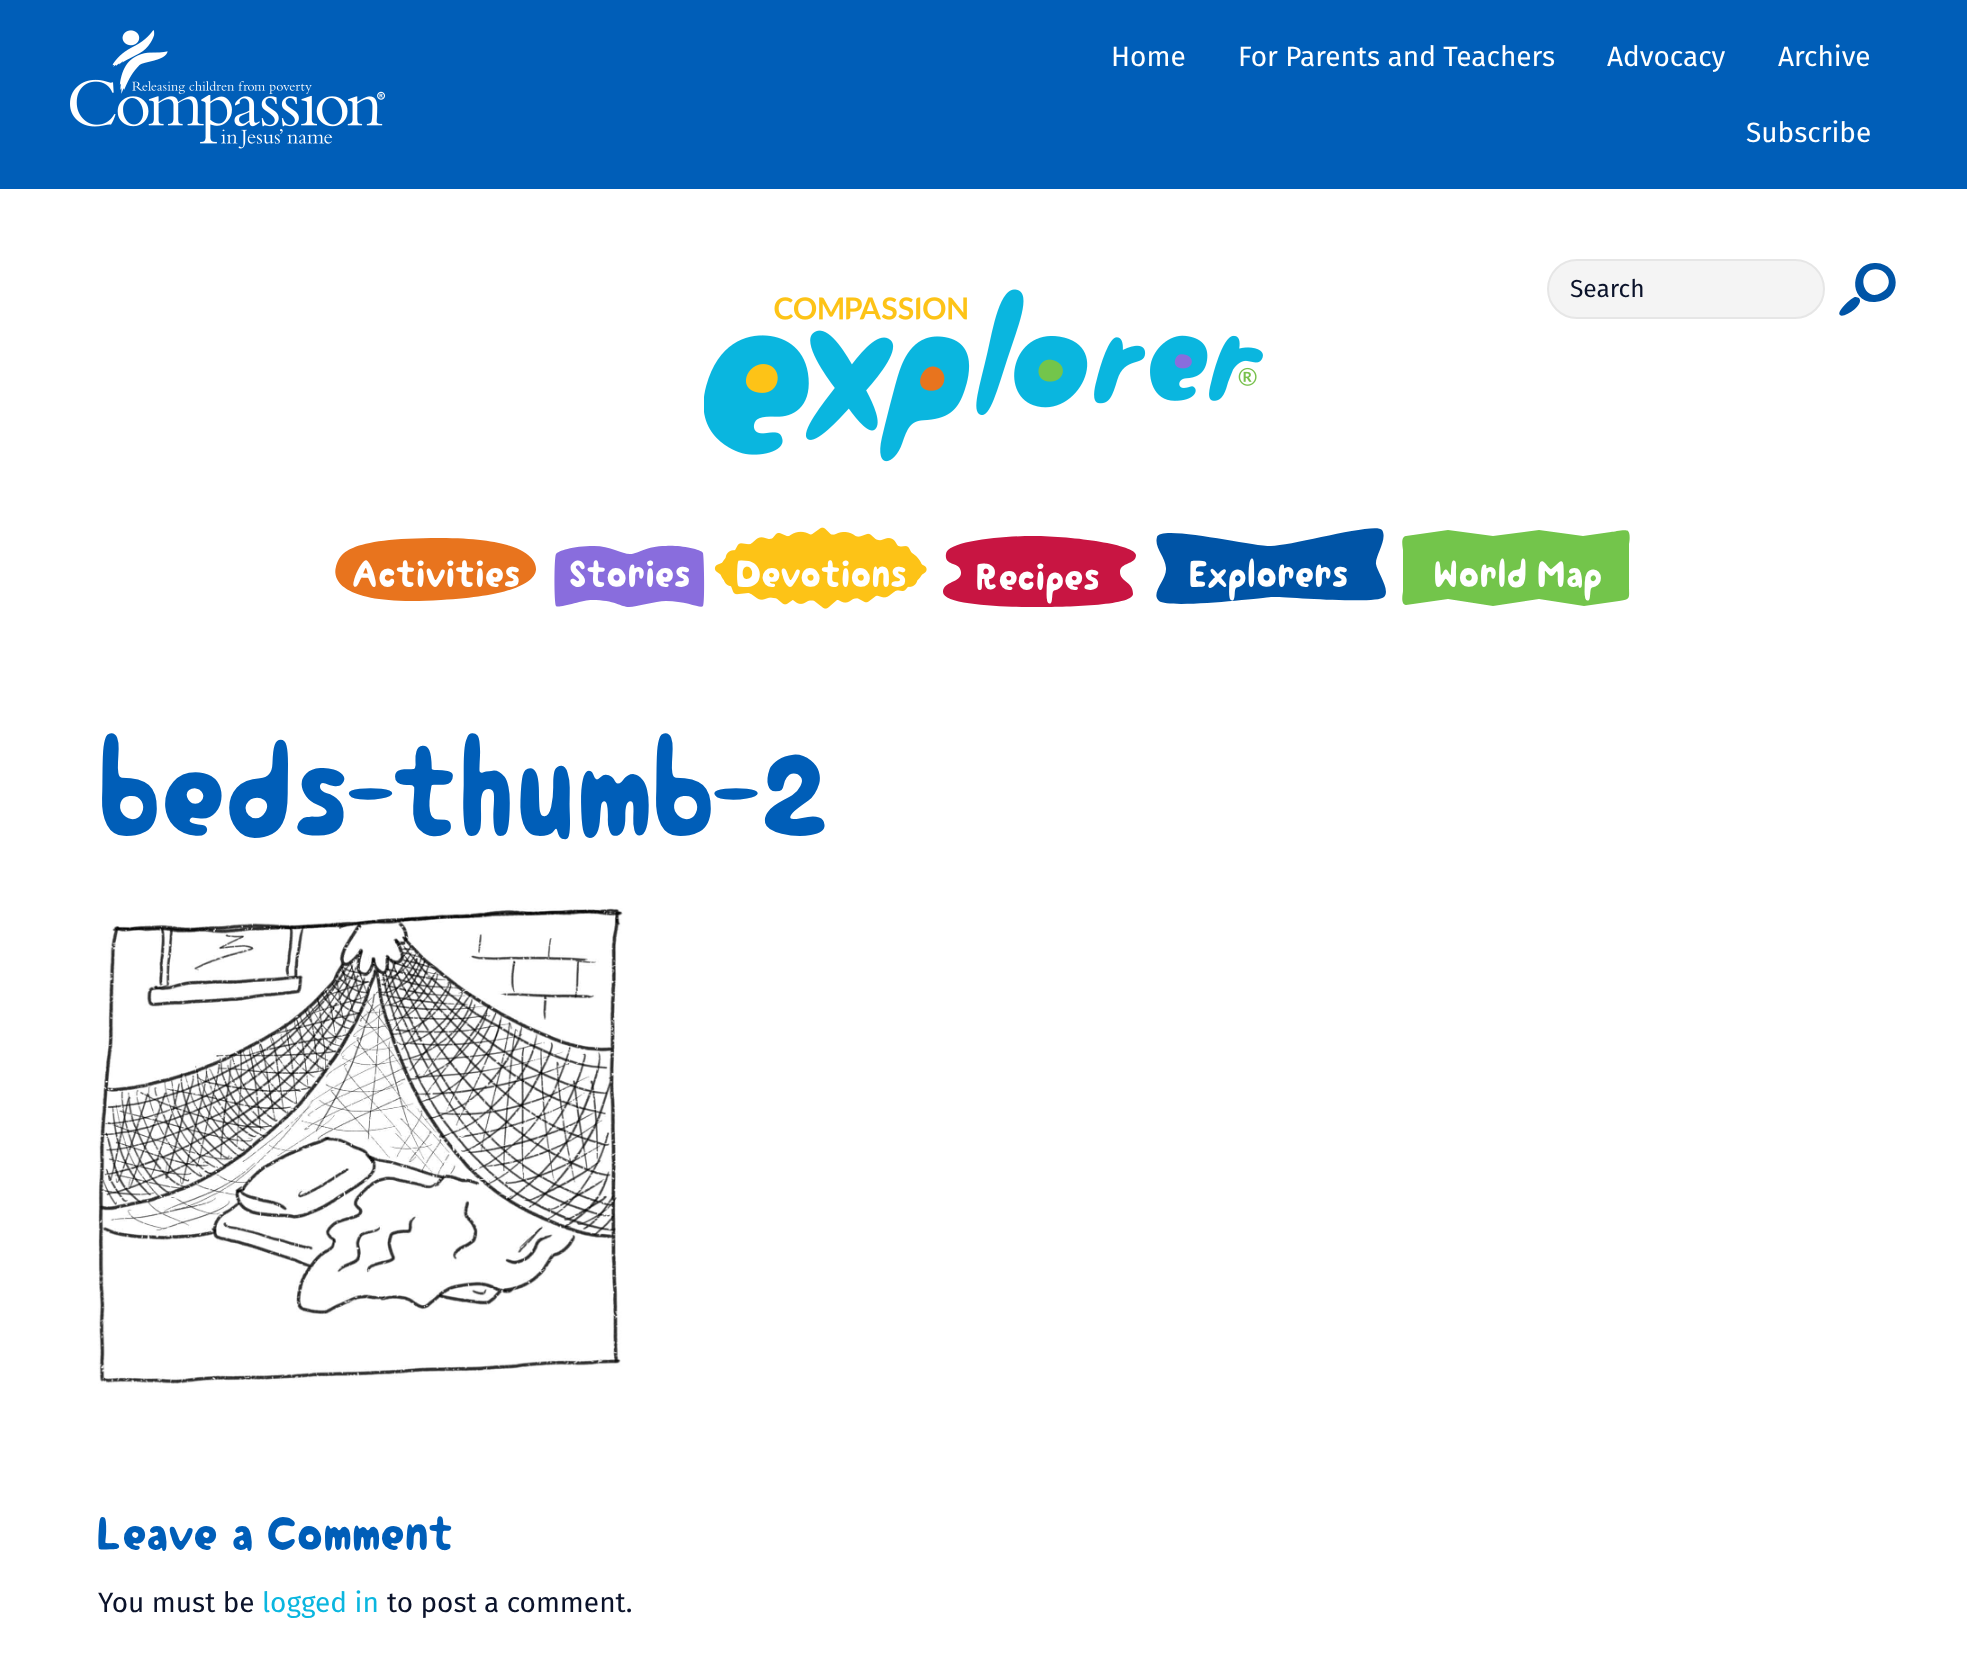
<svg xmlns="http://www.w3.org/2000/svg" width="1967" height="1675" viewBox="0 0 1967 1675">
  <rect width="100%" height="100%" fill="#fff"/>
  <path d="M0 0h1967v189H0z" fill="#005eb8"/>
  <image x="70" y="30" width="315" height="119" href="img/1.png"/>
  <image x="704" y="289" width="559" height="173" href="img/2.png"/>
  <rect x="1548" y="260" width="276" height="58" rx="29" fill="#f4f4f4" stroke="#e6e6e6" stroke-width="2"/>
  <path d="M1876 263C1901 264 1904 300 1875 302C1846 303 1851 261 1876 263ZM1871 270C1856 276 1865 302 1881 293C1897 285 1886 265 1871 270ZM1859 298C1865 305 1843 319 1840 315C1836 312 1851 298 1855 297C1856 297 1857 297 1859 298Z" fill="#0054a6" fill-rule="evenodd"/>
  <path d="M336 567C340 554 344 538 440 538C532 538 536 563 536 569C536 575 531 595 441 600C320 608 336 567 336 567Z" fill="#e8741e"/>
  <path d="M556 554C558 551 572 546 594 546C610 546 622 554 630 554C638 554 646 546 666 546C678 545 701 549 703 553C704 557 705 603 703 606C701 609 687 601 666 601C655 601 637 607 629 607C621 607 615 600 592 600C582 600 558 609 556 606C554 603 554 557 556 554Z" fill="#896ddd"/>
  <image x="714" y="527" width="213" height="82" href="img/3.png"/>
  <path d="M1033 536C1074 536 1136 545 1136 555C1136 565 1120 562 1120 572C1120 582 1133 581 1133 594C1133 606 1062 607 1037 607C1012 607 943 606 943 592C943 581 962 583 961 572C960 561 944 567 946 554C947 541 1003 536 1033 536Z" fill="#c81542"/>
  <path d="M1157 537C1160 524 1250 546 1271 546C1292 546 1375 522 1382 530C1388 539 1375 556 1376 564C1377 572 1391 590 1384 597C1377 605 1280 596 1271 597C1262 598 1169 609 1159 601C1150 593 1167 580 1166 568C1165 556 1154 548 1157 537Z" fill="#0054a6"/>
  <path d="M1406 536L1448 530L1493 536L1539 530L1583 536L1611 532C1614 532 1625 529 1628 531C1631 534 1629 544 1629 544V586C1629 599 1631 599 1619 601L1584 606L1539 599L1493 606L1448 599L1406 605C1400 604 1403 593 1403 591V550C1403 548 1400 537 1406 536Z" fill="#73c54b"/>
  <image x="98" y="908" width="525" height="476" href="img/4.png"/>
  <g font-family="Fira Sans" font-size="28" fill="#fff">
    <text x="1111" y="66">Home</text>
    <text x="1238" y="66">For Parents and Teachers</text>
    <text x="1607" y="66">Advocacy</text>
    <text x="1778" y="66">Archive</text>
    <text x="1746" y="142">Subscribe</text>
  </g>
  <text x="1570" y="297" font-family="Fira Sans" font-size="24.5" fill="#0b132b">Search</text>
  <g font-family="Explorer" font-size="33.25" fill="#fff">
    <text x="353" y="587">Activities</text>
    <text x="570" y="587">Stories</text>
    <text x="737" y="587">Devotions</text>
    <text x="977" y="590">Recipes</text>
    <text x="1190" y="587">Explorers</text>
    <text x="1435" y="587">World Map</text>
  </g>
  <text x="98" y="836" font-family="Explorer" font-size="112" fill="#005eb8">beds-thumb-2</text>
  <text x="98" y="1550" font-family="Explorer" font-size="42" fill="#005eb8">Leave a Comment</text>
  <text x="98" y="1612" font-family="Fira Sans" font-size="28" fill="#0b132b">You must be</text>
  <text x="262" y="1612" font-family="Fira Sans" font-size="28" fill="#0ab6df">logged in</text>
  <text x="387" y="1612" font-family="Fira Sans" font-size="28" fill="#0b132b">to post a comment.</text>
</svg>
